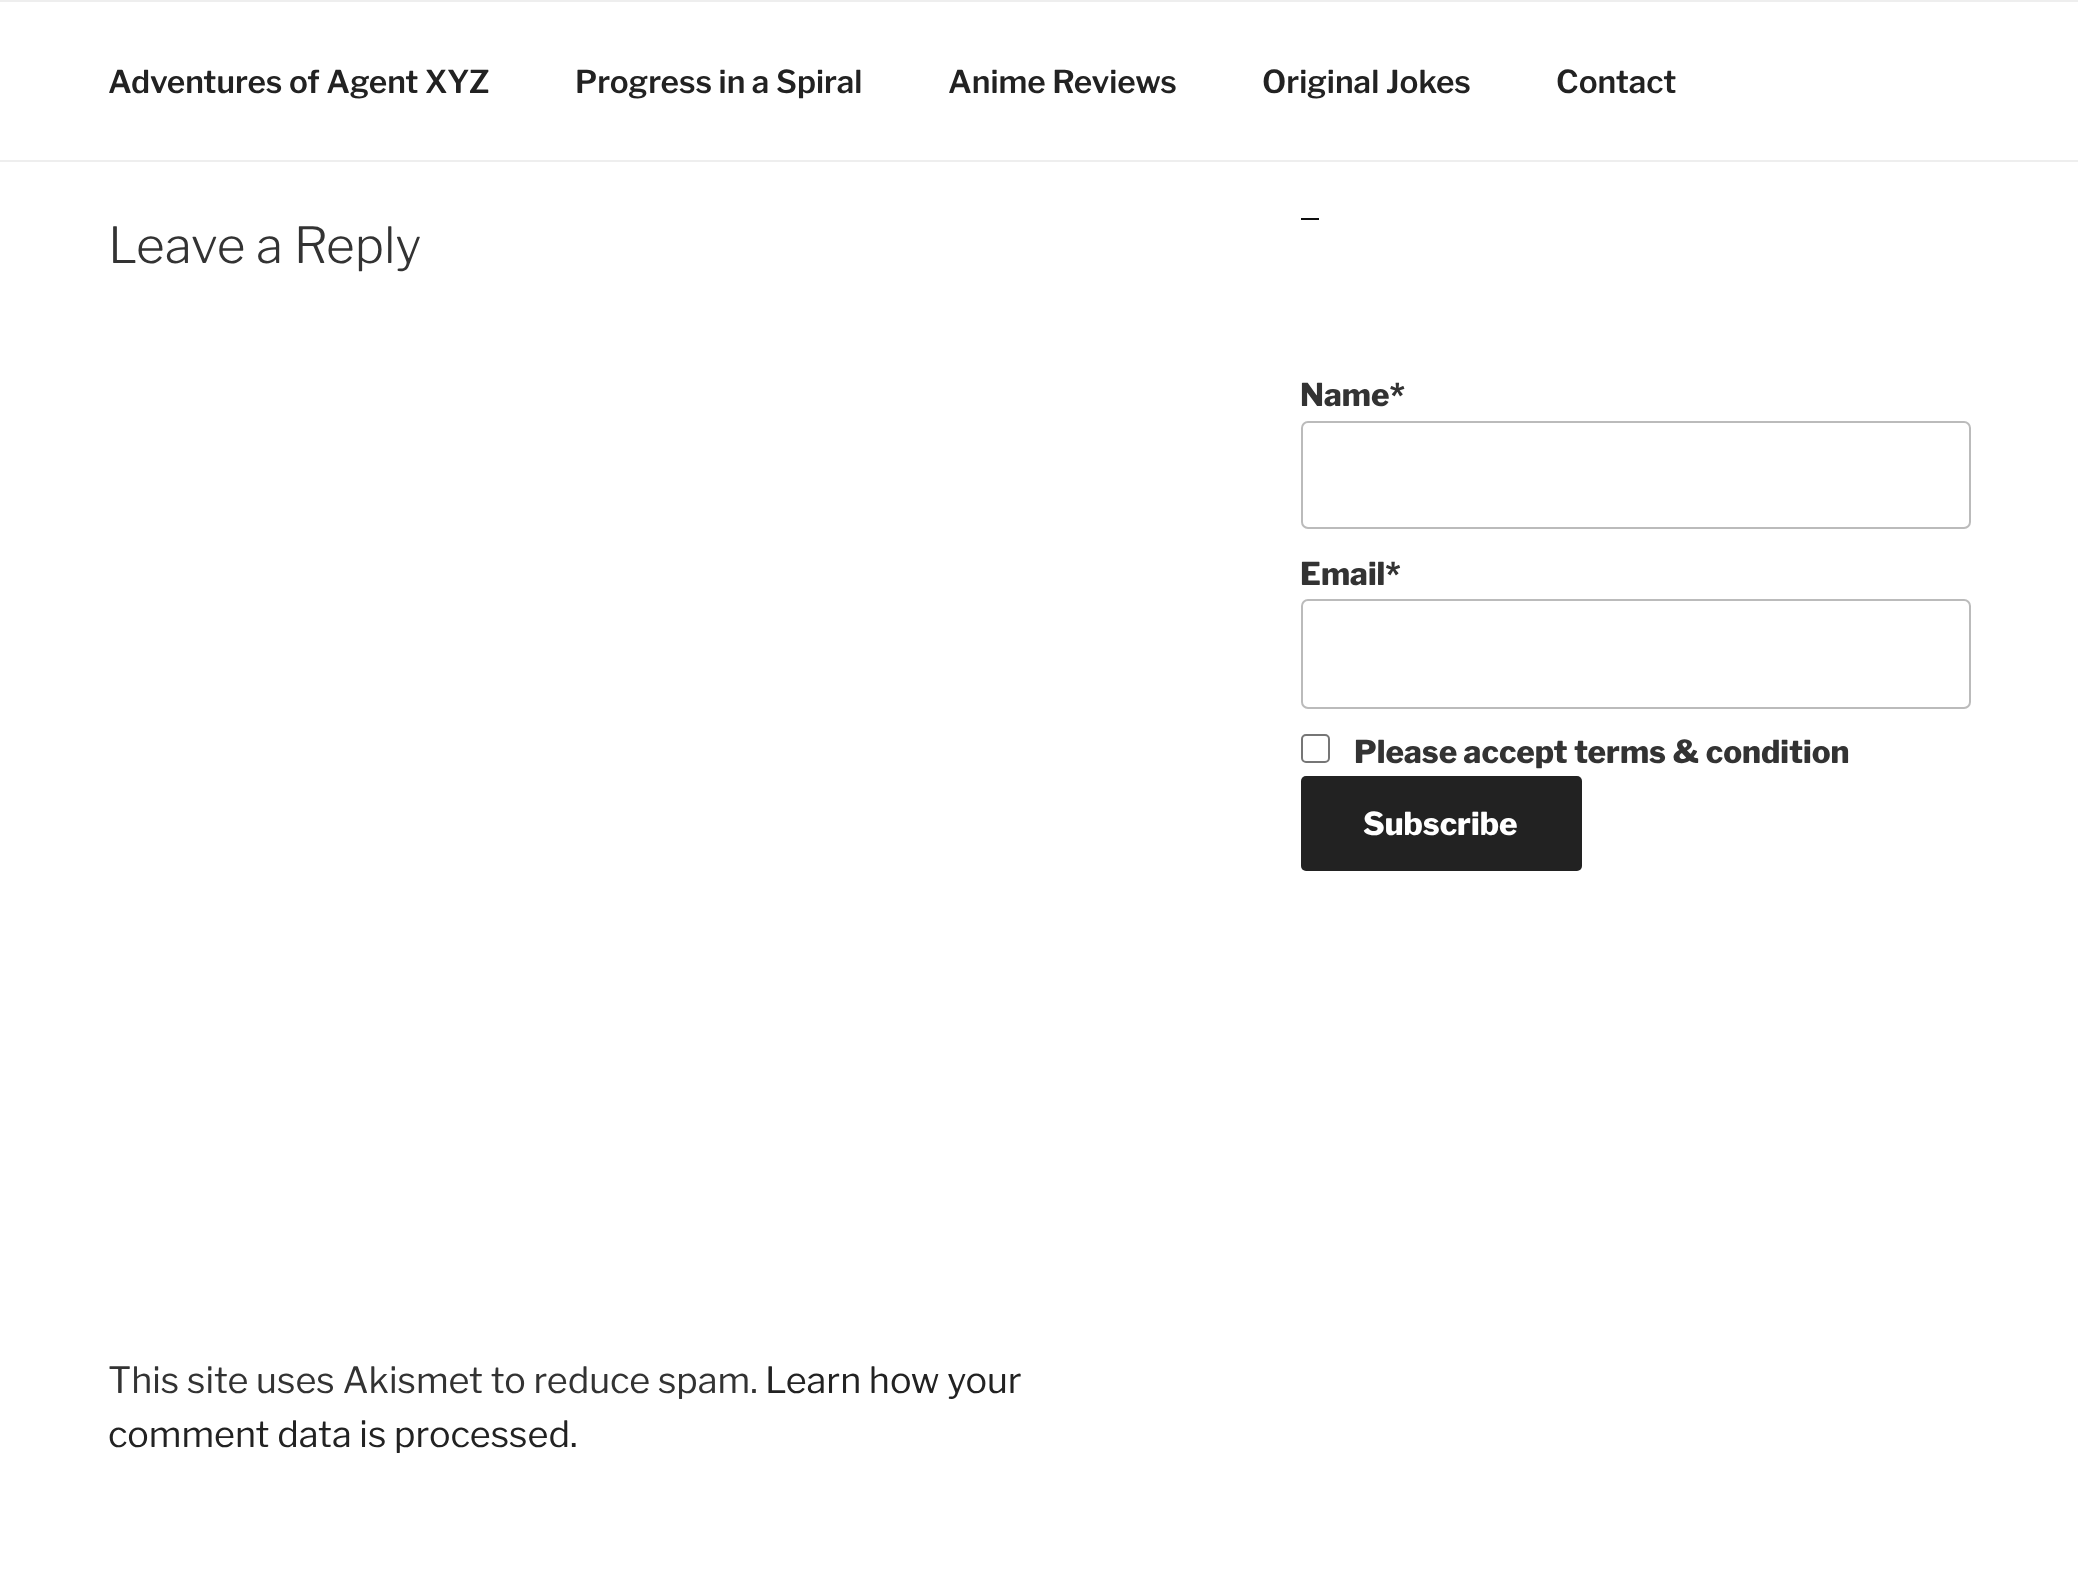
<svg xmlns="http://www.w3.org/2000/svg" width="2078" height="1593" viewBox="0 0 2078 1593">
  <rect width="100%" height="100%" fill="#fff"/>
  <path d="M0 0h2078v2H0z" fill="#eee"/>
  <path d="M0 160h2078v2H0z" fill="#eee"/>
  <path d="M1301 218h18v2H1301z" fill="#0f0f0f"/>
  <rect x="1302" y="422" width="668" height="106" rx="6" fill="none" stroke="#bbb" stroke-width="2"/>
  <rect x="1302" y="600" width="668" height="108" rx="6" fill="none" stroke="#bbb" stroke-width="2"/>
  <rect x="1302" y="735" width="27" height="27" rx="4" fill="none" stroke="#767676" stroke-width="2"/>
  <rect x="1301" y="776" width="281" height="95" rx="5" fill="#222"/>
  <g font-family="'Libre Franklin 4'" font-size="31.5" font-weight="100" fill="#222">
    <text x="108" y="93">Adventures of Agent XYZ</text>
    <text x="575" y="93">Progress in a Spiral</text>
    <text x="948" y="93">Anime Reviews</text>
    <text x="1262" y="93">Original Jokes</text>
    <text x="1556" y="93">Contact</text>
  </g>
  <text x="108" y="263" font-family="Libre Franklin" font-size="49.5" font-weight="100" fill="#333">Leave a Reply</text>
  <text x="108" y="1393" font-family="'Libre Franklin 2'" font-size="36" font-weight="100" fill="#333">This site uses Akismet to reduce spam.</text>
  <g font-family="'Libre Franklin 2'" font-size="36" font-weight="100" fill="#222">
    <text x="765" y="1393">Learn how your</text>
    <text x="108" y="1447">comment data is processed.</text>
  </g>
  <g font-family="'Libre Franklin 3'" font-size="31.5" font-weight="100" fill="#333">
    <text x="1300" y="406">Name*</text>
    <text x="1300" y="585">Email*</text>
    <text x="1354" y="763">Please accept terms &amp; condition</text>
  </g>
  <text x="1363" y="835" font-family="'Libre Franklin 3'" font-size="31.5" font-weight="100" fill="#fff">Subscribe</text>
</svg>
